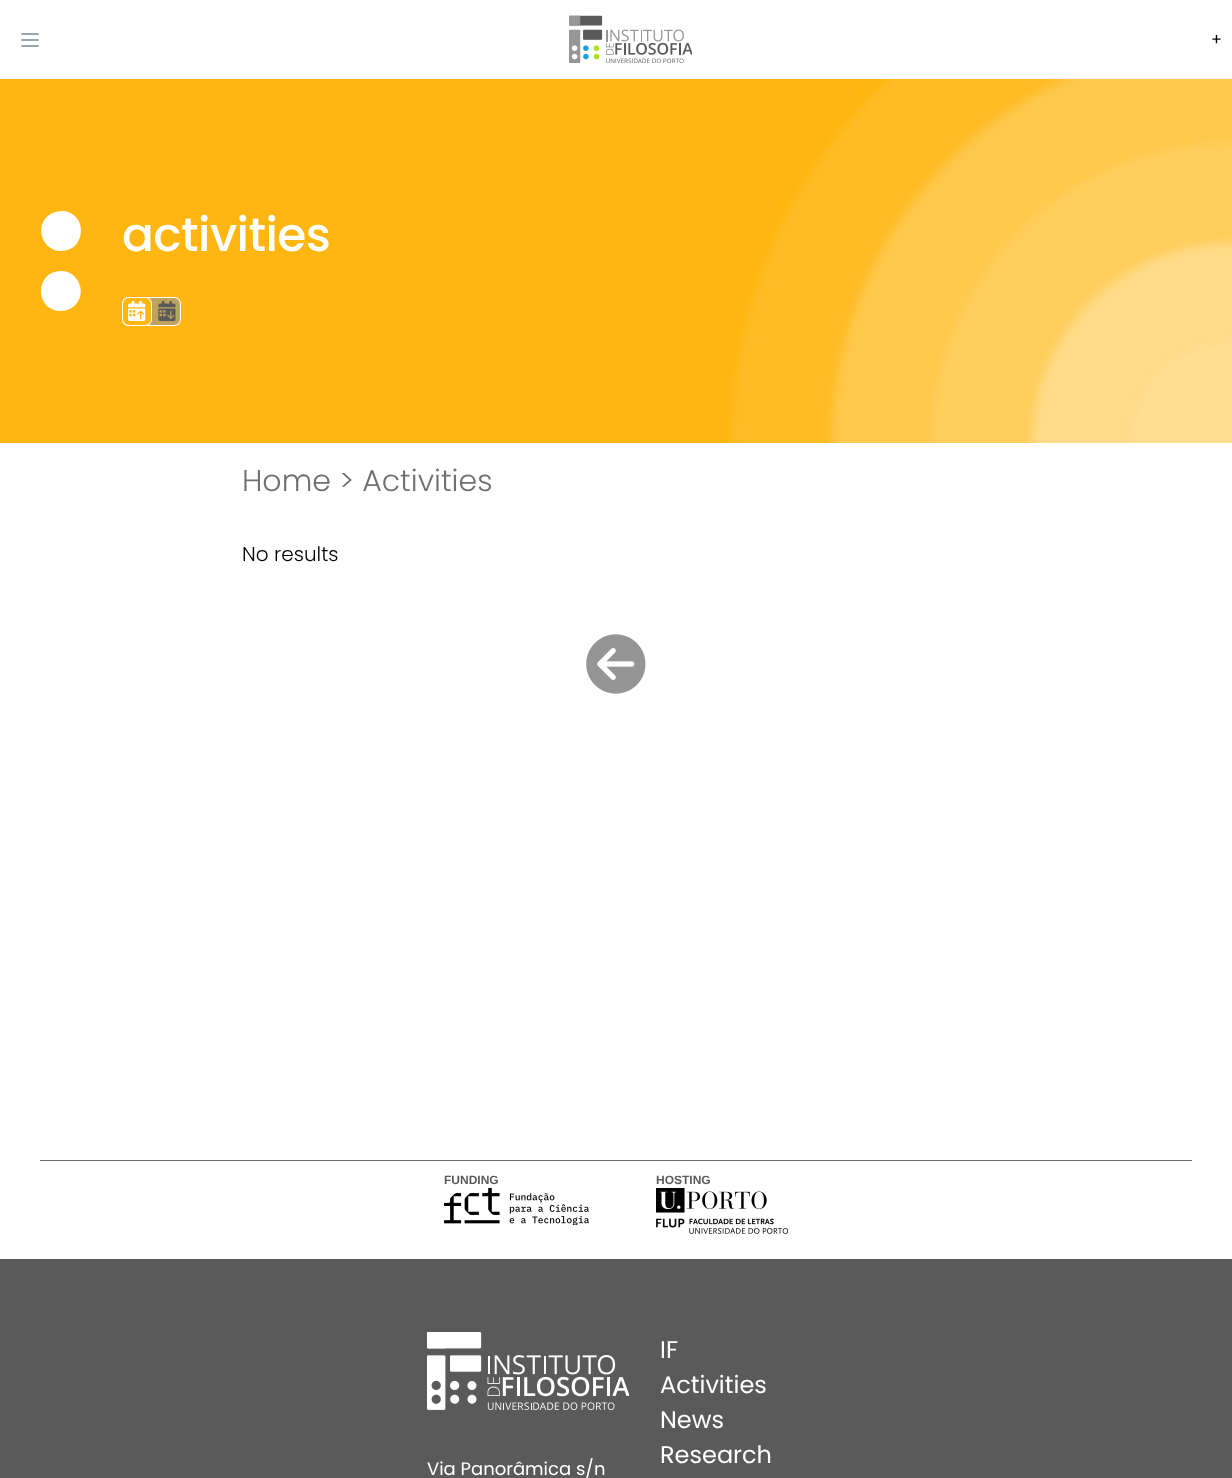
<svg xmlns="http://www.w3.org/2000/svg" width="1232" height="1478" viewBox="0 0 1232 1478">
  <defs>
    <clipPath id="clip1"><path d="M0 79h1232v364H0z"/></clipPath>
  </defs>
  <rect width="100%" height="100%" fill="#fff"/>
  <path d="M0 79h1232v364H0z" fill="#ffb610"/>
  <g clip-path="url(#clip1)">
    <rect x="732" y="-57" width="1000" height="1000" rx="500" fill="#ffbd28e6" filter="blur(5px)"/>
    <rect x="832" y="43" width="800" height="800" rx="400" fill="#ffca51e6" filter="blur(5px)"/>
  </g>
  <path d="M0 78h1232v1H0z" fill="#f3f4f6"/>
  <path d="M22 34H38M22 40H38M22 46H38" fill="none" stroke="#9ca3af" stroke-width="2" stroke-linecap="round" stroke-linejoin="round"/>
  <image x="569" y="15" width="123" height="48" href="img/1.png"/>
  <g clip-path="url(#clip1)">
    <rect x="932" y="143" width="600" height="600" rx="300" fill="#ffce5ee6" filter="blur(5px)"/>
    <rect x="1032" y="243" width="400" height="400" rx="200" fill="#ffdc8de6" filter="blur(5px)"/>
    <rect x="1132" y="343" width="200" height="200" rx="100" fill="#ffde94e6" filter="blur(5px)"/>
  </g>
  <path d="M61 251C87 251 88 212 62 211C58 211 53 212 49 215C34 226 42 251 61 251Z" fill="#fff"/>
  <path d="M61 271C35 271 34 310 60 311C64 311 69 310 73 307C88 296 80 271 61 271Z" fill="#fff"/>
  <image x="122" y="297" width="59" height="29" href="img/2.png"/>
  <image x="586" y="634" width="60" height="60" href="img/3.png"/>
  <path d="M40 1160h1152v1H40z" fill="#707070"/>
  <image x="444" y="1188" width="145" height="37" href="img/4.png"/>
  <image x="656" y="1188" width="132" height="46" href="img/5.png"/>
  <path d="M0 1259h1232v219H0z" fill="#5a5a5a"/>
  <image x="427" y="1332" width="202" height="78" href="img/6.png"/>
  <text x="1211" y="45" font-family="Poppins" font-size="16" fill="#000">+</text>
  <text x="122" y="251" font-family="Poppins" font-size="47" font-weight="500" letter-spacing="-0.5" fill="#fff">activities</text>
  <text x="242" y="491" font-family="Poppins" font-size="30" font-weight="300" fill="#707070">Home &gt; Activities</text>
  <text x="242" y="561" font-family="Poppins" font-size="20" font-weight="300" fill="#000">No results</text>
  <g font-family="Liberation Sans" font-size="12" font-weight="bold" fill="#5a5a5a">
    <text x="444" y="1184">FUNDING</text>
    <text x="656" y="1184">HOSTING</text>
  </g>
  <g font-family="Poppins" font-size="24" fill="#fff">
    <text x="660" y="1358">IF</text>
    <text x="660" y="1393">Activities</text>
    <text x="660" y="1428">News</text>
    <text x="660" y="1463">Research</text>
  </g>
  <text x="427" y="1475" font-family="Poppins" font-size="18" fill="#fff">Via Panorâmica s/n</text>
</svg>
